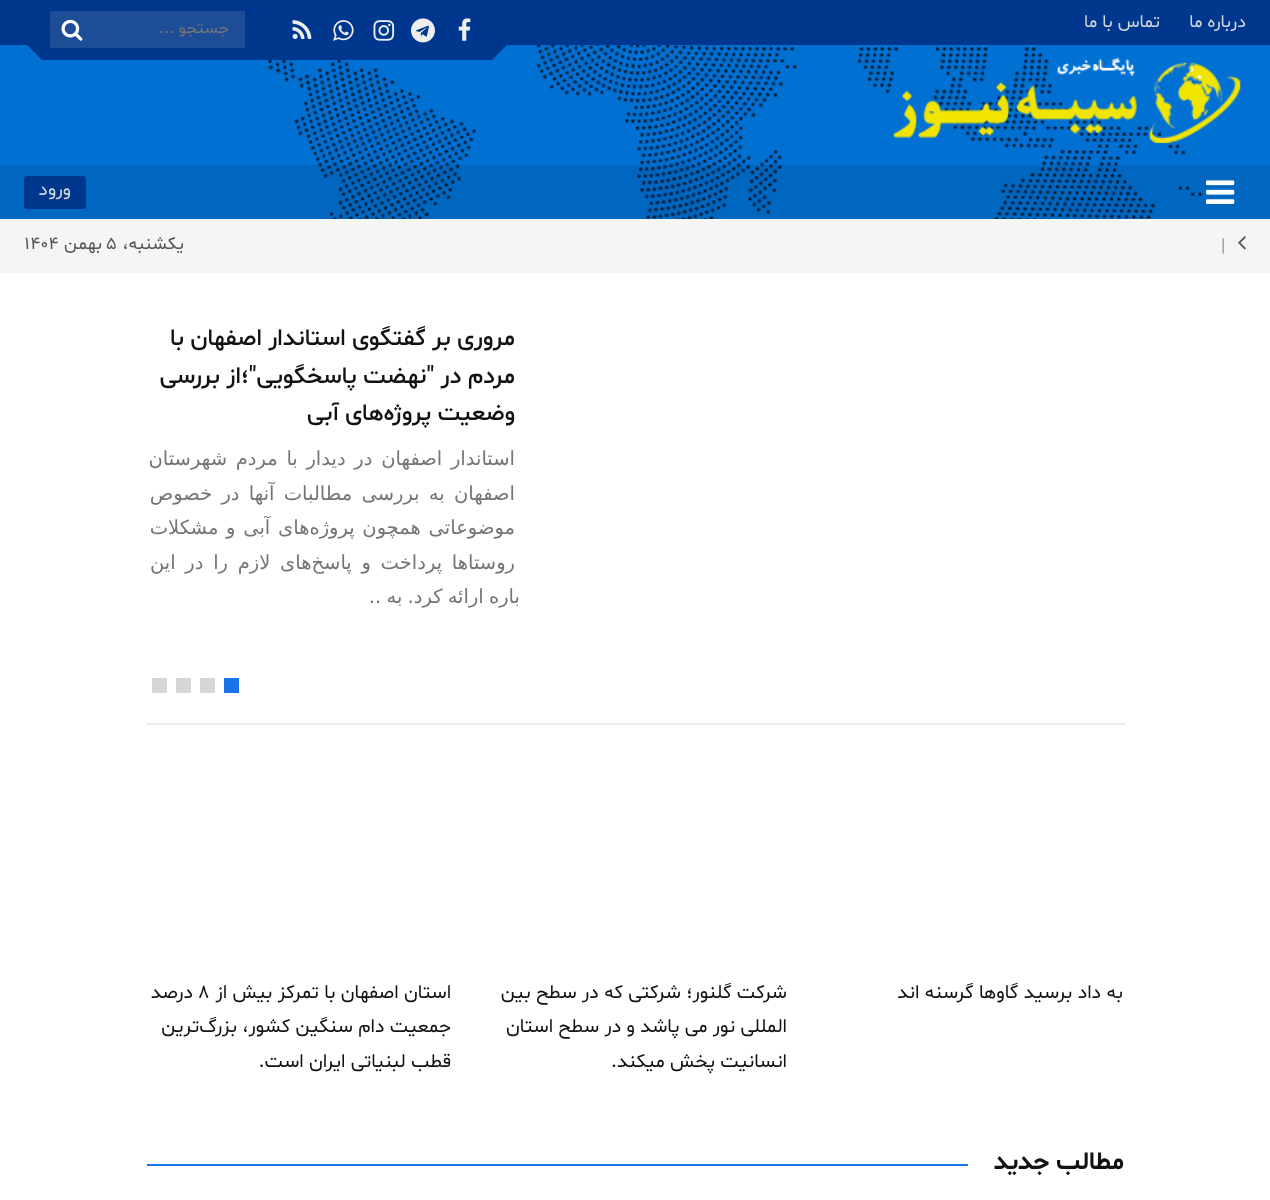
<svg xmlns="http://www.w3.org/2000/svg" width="1270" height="1200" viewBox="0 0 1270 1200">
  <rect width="100%" height="100%" fill="#fff"/>
  <path d="M0 0h1270v45H0z" fill="#00378e"/>
  <path d="M0 45h1270v174H0z" fill="#0070d2"/>
  <image x="261" y="45" width="941" height="174" href="img/7.png"/>
  <path d="M42 45h450v15H42z" fill="#00378e"/>
  <image x="458" y="18" width="13" height="23" href="img/1.png"/>
  <image x="411" y="18" width="24" height="25" href="img/2.png"/>
  <image x="373" y="20" width="22" height="21" href="img/3.png"/>
  <image x="333" y="20" width="21" height="21" href="img/4.png"/>
  <image x="292" y="20" width="20" height="19" href="img/5.png"/>
  <path d="M50 11h195v37H50z" fill="#1e4d97"/>
  <image x="61" y="19" width="22" height="22" href="img/6.png"/>
  <path d="M492 45H507L492 60Z" fill="#00378e"/>
  <path d="M27 45H42V60Z" fill="#00378e"/>
  <image x="893" y="57" width="348" height="87" href="img/8.png"/>
  <path d="M0 165h1270v54H0z" fill="#00000014"/>
  <image x="1206" y="180" width="29" height="24" href="img/9.png"/>
  <rect x="24" y="176" width="62" height="33" rx="3" fill="#00378e"/>
  <path d="M0 219h1270v54H0z" fill="#f5f5f5"/>
  <image x="1238" y="236" width="8" height="14" href="img/10.png"/>
  <path d="M147 723h978v2H147z" fill="#eaeaea"/>
  <path d="M224 678h15v15H224z" fill="#1a73e8"/>
  <path d="M200 678h15v15H200z" fill="#d6d6d6"/>
  <path d="M176 678h15v15H176z" fill="#d6d6d6"/>
  <path d="M152 678h15v15H152z" fill="#d6d6d6"/>
  <path d="M147 1164h821v2H147z" fill="#1a73e8"/>
  <g font-family="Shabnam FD" font-size="18" direction="rtl" fill="#d2d7db">
    <text x="1246" y="27">درباره ما</text>
    <text x="1160" y="27">تماس با ما</text>
  </g>
  <text x="229" y="33" font-family="Shabnam FD" font-size="16.5" direction="rtl" fill="#757575">جستجو ...</text>
  <text x="71" y="195" font-family="Shabnam FD" font-size="19" direction="rtl" fill="#d2d7db">ورود</text>
  <text x="1221" y="251" font-family="Shabnam FD" font-size="18" fill="#959595">|</text>
  <text x="184" y="249" font-family="Shabnam FD" font-size="18" direction="rtl" fill="#555">یکشنبه،</text>
  <text x="106" y="249" font-family="Shabnam FD" font-size="18" fill="#555">5</text>
  <text x="102" y="249" font-family="Shabnam FD" font-size="18" direction="rtl" fill="#555">بهمن</text>
  <text x="24" y="249" font-family="Shabnam FD" font-size="18" fill="#555">1404</text>
  <g font-family="Shabnam FD" font-size="24" font-weight="500" direction="rtl" fill="#121212">
    <text x="515" y="345">مروری بر گفتگوی استاندار اصفهان با</text>
    <text x="515" y="383">مردم در "نهضت پاسخگویی"؛از بررسی</text>
    <text x="515" y="420">وضعیت پروژه‌های آبی</text>
  </g>
  <g font-family="DejaVu Sans" font-size="19.5" direction="rtl" fill="#757575">
    <text x="515" y="465" word-spacing="2.5">استاندار اصفهان در دیدار با مردم شهرستان</text>
    <text x="515" y="500" word-spacing="3">اصفهان به بررسی مطالبات آنها در خصوص</text>
    <text x="515" y="534" word-spacing="1.5">موضوعاتی همچون پروژه‌های آبی و مشکلات</text>
    <text x="515" y="569" word-spacing="3.5">روستاها پرداخت و پاسخ‌های لازم را در این</text>
    <text x="520" y="603" word-spacing="-1">باره ارائه کرد. به ..</text>
  </g>
  <g font-family="Shabnam FD" font-size="19.5" direction="rtl" fill="#121212">
    <text x="1123" y="998">به داد برسید گاوها گرسنه اند</text>
    <text x="787" y="998">شرکت گلنور؛ شرکتی که در سطح بین</text>
    <text x="787" y="1032">المللی نور می پاشد و در سطح استان</text>
    <text x="787" y="1067">انسانیت پخش میکند.</text>
    <text x="451" y="998">استان اصفهان با تمرکز بیش از</text>
  </g>
  <text x="198" y="998" font-family="Shabnam FD" font-size="19.5" fill="#121212">۸</text>
  <g font-family="Shabnam FD" font-size="19.5" direction="rtl" fill="#121212">
    <text x="193" y="998">درصد</text>
    <text x="451" y="1032">جمعیت دام سنگین کشور، بزرگ‌ترین</text>
    <text x="451" y="1067">قطب لبنیاتی ایران است.</text>
  </g>
  <text x="1124" y="1169" font-family="Shabnam FD" font-size="25.5" font-weight="bold" direction="rtl" fill="#121212">مطالب جدید</text>
</svg>
